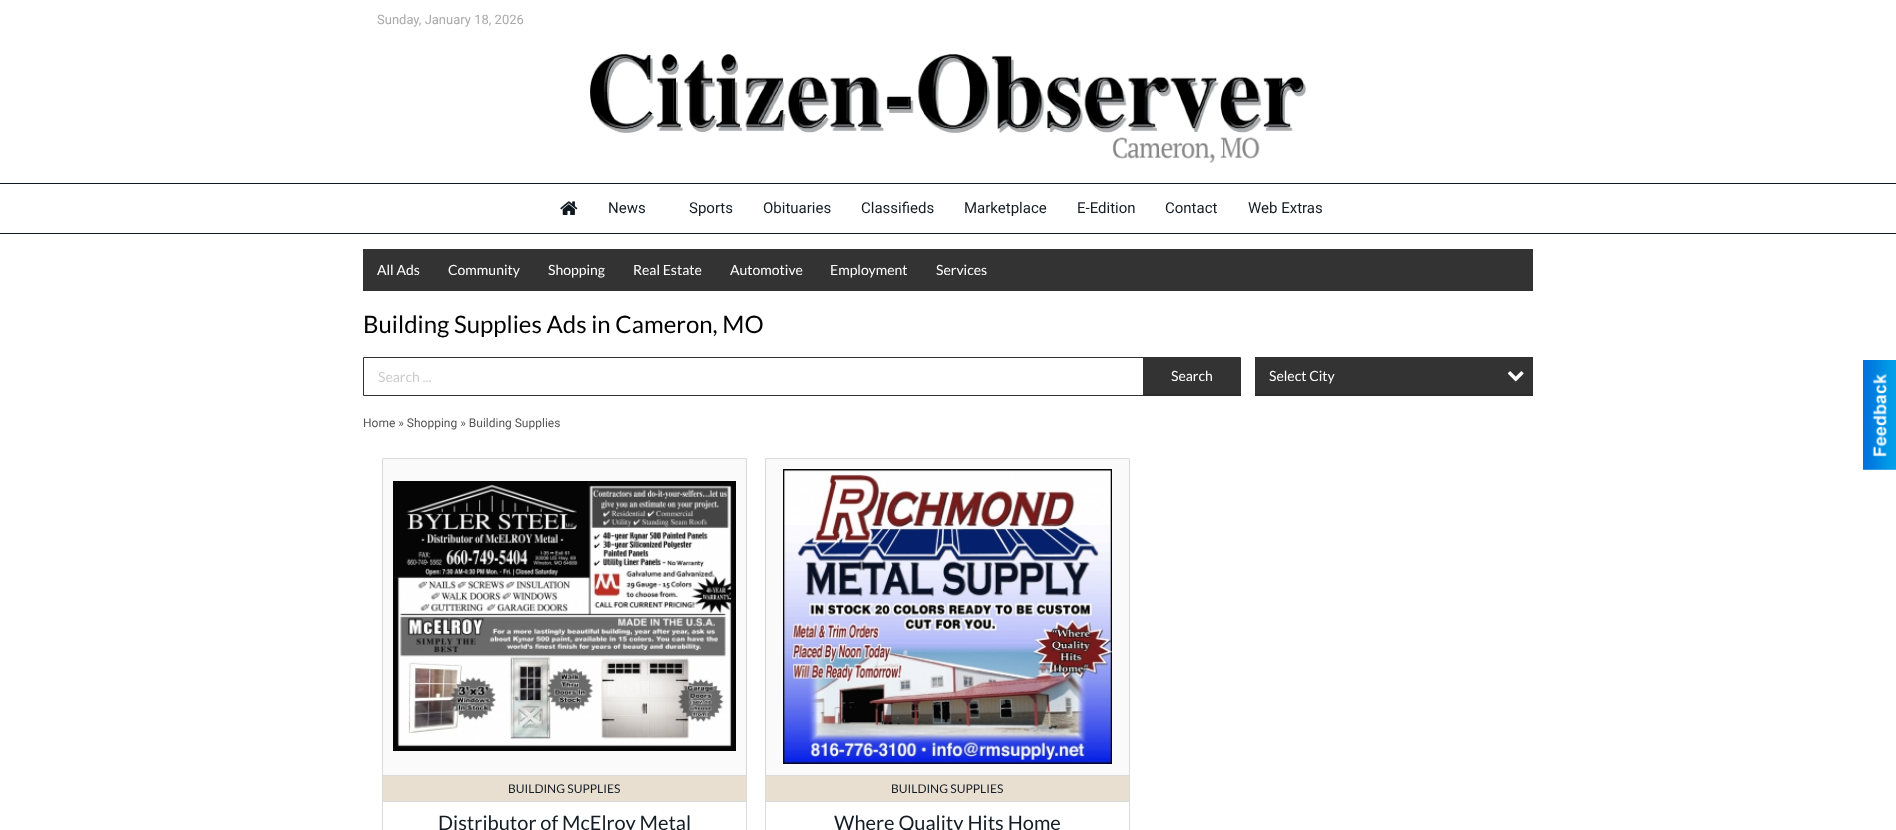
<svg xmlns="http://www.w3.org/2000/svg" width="1896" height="830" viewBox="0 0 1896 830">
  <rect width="100%" height="100%" fill="#fff"/>
  <image x="590" y="54" width="716" height="110" href="img/1.png"/>
  <path d="M0 183h1896v1H0z" fill="#101820"/>
  <path d="M0 233h1896v1H0z" fill="#101820"/>
  <image x="560" y="201" width="18" height="14" href="img/2.png"/>
  <path d="M363 249h1170v42H363z" fill="#333"/>
  <path d="M363.5 357.5h877v38H363.5z" fill="none" stroke="#333"/>
  <path d="M1143 358h97v36H1143z" fill="#333"/>
  <path d="M1143 394h98v2H1143z" fill="#2b2b2b"/>
  <path d="M1255 357h278v37H1255z" fill="#333"/>
  <path d="M1255 394h278v2H1255z" fill="#2b2b2b"/>
  <image x="1507" y="371" width="17" height="11" href="img/3.png"/>
  <path d="M382.5 458.5h364v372H382.5z" fill="none" stroke="#dadada"/>
  <path d="M383 459h363v316H383z" fill="#fafafa"/>
  <image x="393" y="481" width="343" height="270" href="img/4.png"/>
  <path d="M383 776h363v25H383z" fill="#e8dfd1"/>
  <path d="M383 775h363v1H383z" fill="#dadada"/>
  <path d="M383 801h363v1H383z" fill="#dadada"/>
  <path d="M765.5 458.5h364v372H765.5z" fill="none" stroke="#dadada"/>
  <path d="M766 459h363v316H766z" fill="#fafafa"/>
  <image x="783" y="469" width="329" height="295" href="img/5.png"/>
  <path d="M766 776h363v25H766z" fill="#e8dfd1"/>
  <path d="M766 775h363v1H766z" fill="#dadada"/>
  <path d="M766 801h363v1H766z" fill="#dadada"/>
  <image x="1863" y="360" width="33" height="110" href="img/6.png"/>
  <text x="377" y="24" font-family="Roboto" font-size="13" fill="#aaa">Sunday, January 18, 2026</text>
  <g font-family="Roboto" font-size="15" fill="#151d24">
    <text x="608" y="213">News</text>
    <text x="689" y="213">Sports</text>
    <text x="763" y="213">Obituaries</text>
    <text x="861" y="213">Classifieds</text>
    <text x="964" y="213">Marketplace</text>
    <text x="1077" y="213">E-Edition</text>
    <text x="1165" y="213">Contact</text>
    <text x="1248" y="213">Web Extras</text>
  </g>
  <g font-family="Lato" font-size="14" fill="#fff">
    <text x="377" y="275">All Ads</text>
    <text x="448" y="275">Community</text>
    <text x="548" y="275">Shopping</text>
    <text x="633" y="275">Real Estate</text>
    <text x="730" y="275">Automotive</text>
    <text x="830" y="275">Employment</text>
    <text x="936" y="275">Services</text>
  </g>
  <text x="363" y="333" font-family="Lato" font-size="24" fill="#000">Building Supplies Ads in Cameron, MO</text>
  <text x="378" y="382" font-family="Lato" font-size="14" fill="#ccc">Search ...</text>
  <g font-family="Lato" font-size="14" fill="#fff">
    <text x="1171" y="381">Search</text>
    <text x="1269" y="381">Select City</text>
  </g>
  <text x="363" y="427" font-family="Roboto" font-size="12" fill="#555">Home » Shopping » Building Supplies</text>
  <text x="508" y="793" font-family="Lato" font-size="12" fill="#151d24">BUILDING SUPPLIES</text>
  <text x="438" y="830" font-family="Lato" font-size="20" fill="#151d24">Distributor of McElroy Metal</text>
  <text x="891" y="793" font-family="Lato" font-size="12" fill="#151d24">BUILDING SUPPLIES</text>
  <text x="834" y="830" font-family="Lato" font-size="20" fill="#151d24">Where Quality Hits Home</text>
</svg>
